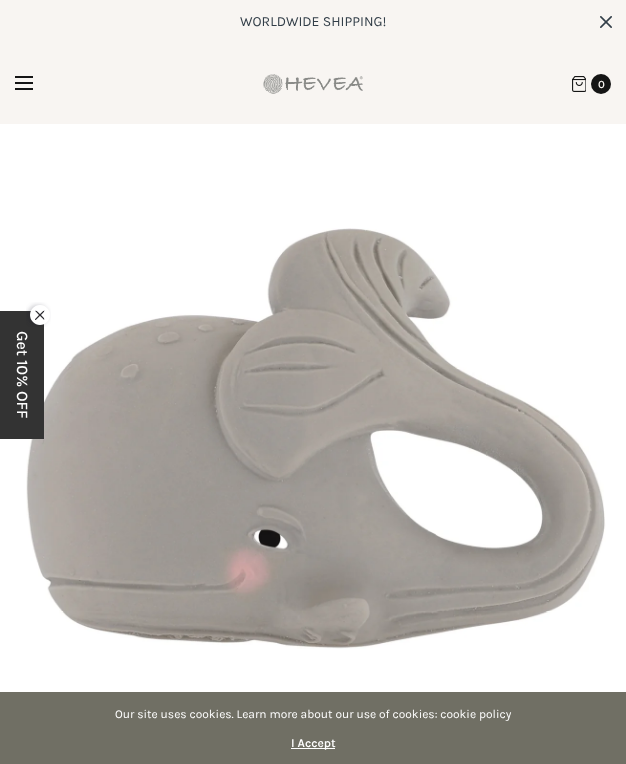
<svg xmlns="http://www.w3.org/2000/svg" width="626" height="764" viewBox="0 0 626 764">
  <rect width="100%" height="100%" fill="#fff"/>
  <path d="M0 0h626v124H0z" fill="#f8f5f2"/>
  <image x="600" y="16" width="12" height="12" href="img/1.png"/>
  <path d="M15 76h18v2H15z" fill="#151515"/>
  <path d="M15 82h18v2H15z" fill="#151515"/>
  <path d="M15 88h18v2H15z" fill="#151515"/>
  <image x="263" y="74" width="100" height="20" href="img/2.png"/>
  <image x="572" y="76" width="14" height="16" href="img/3.png"/>
  <circle cx="601" cy="84" r="10" fill="#151515"/>
  <image x="26" y="228" width="580" height="421" href="img/4.png"/>
  <path d="M0 311h44v128H0z" fill="#333"/>
  <image x="26" y="302" width="25" height="25" href="img/5.png"/>
  <path d="M0 692h626v72H0z" fill="#706f64"/>
  <path d="M291 748h44v1H291z" fill="#fff"/>
  <text x="240" y="26" font-family="Karla" font-size="14" fill="#323e48">WORLDWIDE SHIPPING!</text>
  <text x="598" y="88" font-family="Karla" font-size="11" font-weight="600" fill="#f8f5f2">0</text>
  <text x="17" y="331" transform="rotate(90 17 331)" font-family="Karla" font-size="16" font-weight="500" fill="#fff">Get 10% OFF</text>
  <text x="115" y="718" font-family="Karla" font-size="12" fill="#fff">Our site uses cookies. Learn more about our use of cookies: cookie policy</text>
  <text x="291" y="747" font-family="Karla" font-size="12" font-weight="600" fill="#fff">I Accept</text>
</svg>
